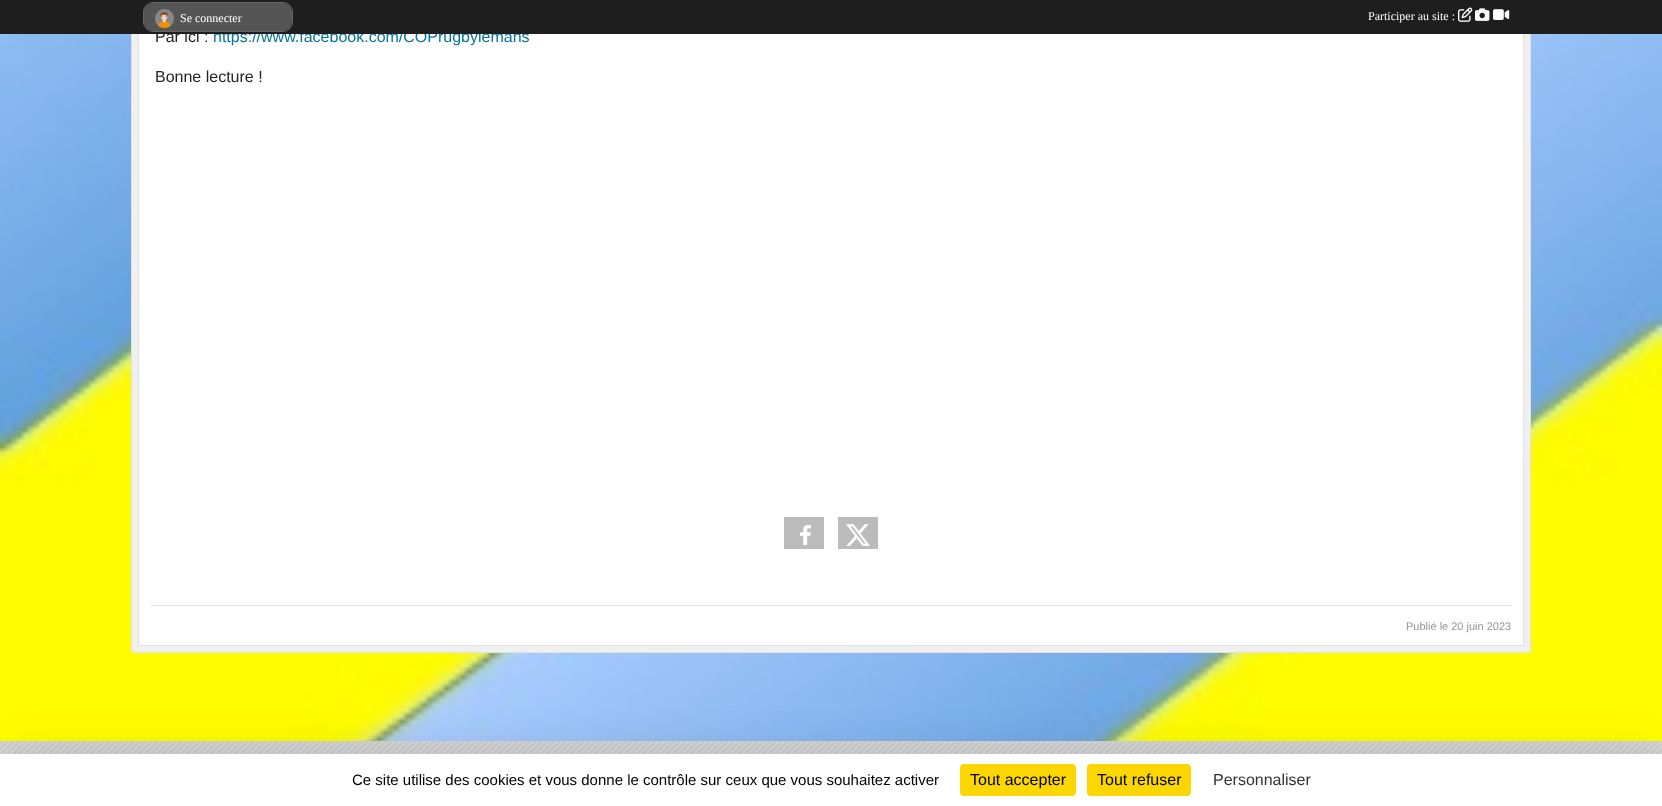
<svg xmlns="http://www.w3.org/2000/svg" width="1662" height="806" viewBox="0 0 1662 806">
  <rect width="100%" height="100%" fill="#fff"/>
  <image x="0" y="34" width="1662" height="707" href="img/1.png"/>
  <rect x="131.5" y="-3.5" width="1399" height="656" rx="2.5" fill="#f0f0f0" stroke="#e1e1e1"/>
  <path d="M139 34h1384v611H139z" fill="#fff"/>
  <path d="M138.5 -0.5h1385v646H138.5z" fill="none" stroke="#e1e1e1"/>
  <path d="M784 517h40v32H784z" fill="#bbb"/>
  <image x="800" y="525" width="11" height="20" href="img/6.png"/>
  <path d="M838 517h40v32H838z" fill="#bbb"/>
  <image x="846" y="524" width="24" height="22" href="img/7.png"/>
  <path d="M151 605h1360v1H151z" fill="#e1e1e1"/>
  <image x="0" y="741" width="1662" height="13" href="img/8.png"/>
  <path d="M0 774h1662v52H0z" fill="#00000040" filter="blur(30px)"/>
  <path d="M0 754h1662v52H0z" fill="#fff"/>
  <rect x="960" y="764" width="116" height="32" rx="4" fill="#fbd600"/>
  <rect x="1087" y="764" width="104" height="32" rx="4" fill="#fbd600"/>
  <text x="155" y="42" font-family="Liberation Sans" font-size="16" fill="#212529">Par ici :</text>
  <text x="213" y="42" font-family="Liberation Sans" font-size="16" fill="#097599">https://www.facebook.com/COPrugbylemans</text>
  <path d="M0 0h1662v34H0z" fill="#1e1e1e"/>
  <rect x="143.5" y="2.5" width="149" height="29" rx="9.5" fill="none" stroke="#666"/>
  <rect x="144" y="3" width="148" height="28" rx="9" fill="#555"/>
  <text x="180" y="22" font-family="Liberation Serif" font-size="12" fill="#fff">Se connecter</text>
  <image x="155" y="9" width="19" height="19" href="img/2.png"/>
  <image x="1493" y="9" width="17" height="11" href="img/5.png"/>
  <image x="1475" y="8" width="15" height="13" href="img/4.png"/>
  <image x="1458" y="7" width="15" height="15" href="img/3.png"/>
  <text x="1368" y="20" font-family="Liberation Serif" font-size="12" fill="#fff">Participer au site :</text>
  <text x="155" y="82" font-family="Liberation Sans" font-size="16" fill="#212529">Bonne lecture !</text>
  <text x="1406" y="630" font-family="Liberation Sans" font-size="11" fill="#969696">Publié le 20 juin 2023</text>
  <text x="352" y="785" font-family="Liberation Sans" font-size="15" fill="#000">Ce site utilise des cookies et vous donne le contrôle sur ceux que vous souhaitez activer</text>
  <g font-family="Liberation Sans" font-size="16" fill="#000">
    <text x="970" y="785">Tout accepter</text>
    <text x="1097" y="785">Tout refuser</text>
  </g>
  <text x="1213" y="785" font-family="Liberation Sans" font-size="16" fill="#333">Personnaliser</text>
</svg>
